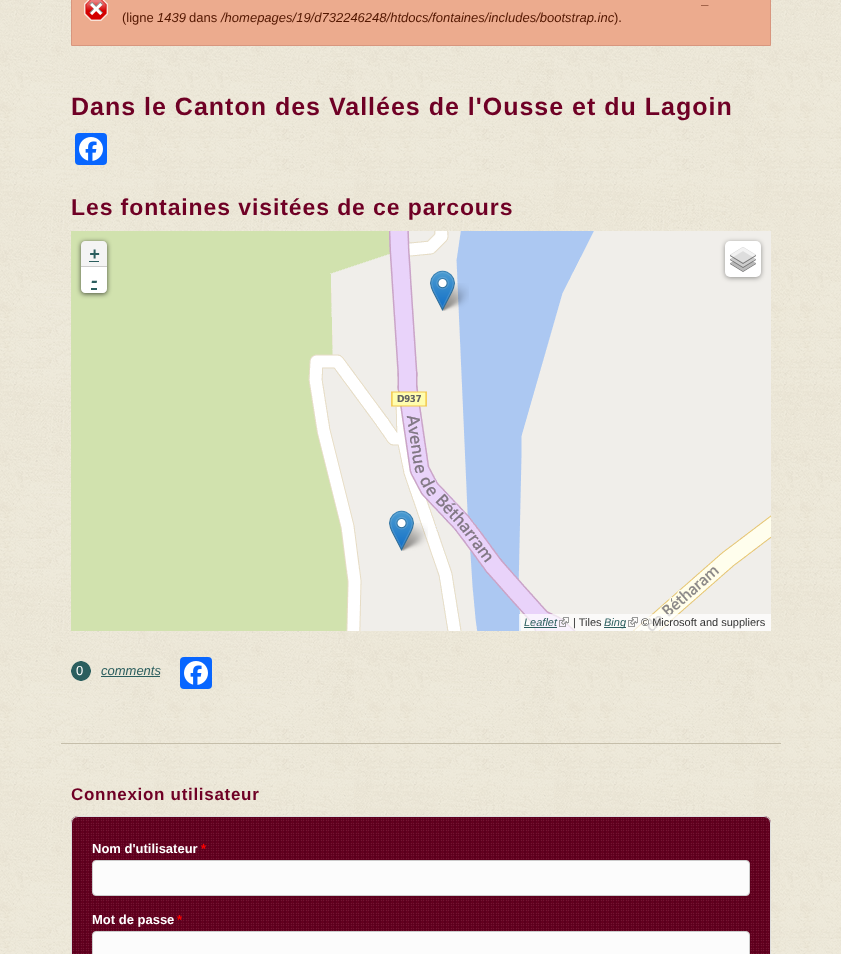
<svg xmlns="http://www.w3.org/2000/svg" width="841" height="954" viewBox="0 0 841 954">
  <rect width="100%" height="100%" fill="#fff"/>
  <image x="0" y="0" width="841" height="954" href="img/1.png"/>
  <path d="M61 743h720v1H61z" fill="#c5beaa"/>
  <path d="M72 0h698v45H72z" fill="#ecab8e"/>
  <image x="84" y="0" width="24" height="21" href="img/2.png"/>
  <path d="M71.5 -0.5h699v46H71.5z" fill="none" stroke="#d8967e"/>
  <rect x="75" y="133" width="32" height="32" rx="4" fill="#0866ff"/>
  <image x="79" y="137" width="24" height="24" href="img/3.png"/>
  <path d="M71 231h108v400H71z" fill="#d1e2ae"/>
  <image x="179" y="231" width="256" height="46" href="img/4.png"/>
  <image x="435" y="231" width="256" height="46" href="img/5.png"/>
  <path d="M691 231h80v46H691z" fill="#f0eeea"/>
  <image x="179" y="277" width="256" height="256" href="img/6.png"/>
  <image x="435" y="277" width="256" height="256" href="img/7.png"/>
  <image x="691" y="277" width="80" height="256" href="img/8.png"/>
  <image x="179" y="533" width="256" height="98" href="img/9.png"/>
  <image x="435" y="533" width="256" height="98" href="img/10.png"/>
  <image x="691" y="533" width="80" height="98" href="img/11.png"/>
  <image x="440" y="283" width="29" height="28" href="img/13.png"/>
  <image x="430" y="270" width="25" height="41" href="img/12.png"/>
  <image x="399" y="523" width="29" height="28" href="img/14.png"/>
  <image x="389" y="510" width="25" height="41" href="img/12.png"/>
  <rect x="81" y="242" width="26" height="52" rx="4" fill="#000000a6" filter="blur(2.5px)"/>
  <path d="M85 241H103C105 241 107 243 107 245V267H81V245C81 243 83 241 85 241Z" fill="#f4f4f4"/>
  <path d="M81 266h26v1H81z" fill="#ccc"/>
  <path d="M89 261h10v1H89z" fill="#2b5e5e"/>
  <path d="M81 267H107V289C107 291 105 293 103 293H85C83 293 81 291 81 289Z" fill="#fff"/>
  <path d="M91 288h6v2H91z" fill="#2b5e5e"/>
  <rect x="725" y="242" width="36" height="36" rx="5" fill="#00000066" filter="blur(2.5px)"/>
  <rect x="725" y="241" width="36" height="36" rx="5" fill="#fff"/>
  <image x="730" y="247" width="26" height="25" href="img/15.png"/>
  <path d="M519 614h252v17H519z" fill="#ffffffb3"/>
  <path d="M524 627h33v1H524z" fill="#2b5e5e"/>
  <image x="559" y="617" width="10" height="10" href="img/16.png"/>
  <path d="M604 627h22v1H604z" fill="#2b5e5e"/>
  <image x="628" y="617" width="10" height="10" href="img/17.png"/>
  <image x="71" y="661" width="20" height="20" href="img/18.png"/>
  <path d="M101 676h59v1H101z" fill="#2b5e5e"/>
  <rect x="180" y="657" width="32" height="32" rx="4" fill="#0866ff"/>
  <image x="184" y="661" width="24" height="24" href="img/3.png"/>
  <image x="71" y="816" width="700" height="138" href="img/19.png"/>
  <rect x="71.5" y="816.5" width="699" height="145" rx="6.5" fill="none" stroke="#ddd"/>
  <rect x="92.5" y="860.5" width="657" height="35" rx="3.5" fill="#fcfcfc" stroke="#ccc"/>
  <rect x="92.5" y="931.5" width="657" height="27" rx="3.5" fill="#fcfcfc" stroke="#ccc"/>
  <text x="702" y="4" font-family="Liberation Sans" font-size="13" font-style="italic" fill="#531700">_</text>
  <text x="122" y="22" font-family="Liberation Sans" font-size="13" fill="#531700">(ligne</text>
  <text x="157" y="22" font-family="Liberation Sans" font-size="13" font-style="italic" fill="#531700">1439</text>
  <text x="189" y="22" font-family="Liberation Sans" font-size="13" fill="#531700">dans</text>
  <text x="221" y="22" font-family="Liberation Sans" font-size="13" font-style="italic" fill="#531700">/homepages/19/d732246248/htdocs/fontaines/includes/bootstrap.inc</text>
  <text x="614" y="22" font-family="Liberation Sans" font-size="13" fill="#531700">).</text>
  <text x="71" y="115" font-family="Liberation Sans" font-size="25" font-weight="bold" letter-spacing="1" fill="#6f0025">Dans le Canton des Vallées de l'Ousse et du Lagoin</text>
  <text x="71" y="215" font-family="Liberation Sans" font-size="23" font-weight="bold" letter-spacing="0.9" fill="#6f0025">Les fontaines visitées de ce parcours</text>
  <text x="89" y="260" font-family="Liberation Sans" font-size="18" font-weight="bold" font-style="italic" fill="#2b5e5e">+</text>
  <text x="91" y="287" font-family="Liberation Sans" font-size="20" font-weight="bold" font-style="italic" fill="#2b5e5e">-</text>
  <text x="524" y="626" font-family="Liberation Sans" font-size="11" font-style="italic" fill="#2b5e5e">Leaflet</text>
  <text x="573" y="626" font-family="Liberation Sans" font-size="11" fill="#333">| Tiles</text>
  <text x="604" y="626" font-family="Liberation Sans" font-size="11" font-style="italic" fill="#2b5e5e">Bing</text>
  <text x="641" y="626" font-family="Liberation Sans" font-size="11" fill="#333">© Microsoft and suppliers</text>
  <text x="76" y="675" font-family="Liberation Sans" font-size="13" fill="#fff">0</text>
  <text x="101" y="675" font-family="Liberation Sans" font-size="13" font-style="italic" fill="#2b5e5e">comments</text>
  <text x="71" y="800" font-family="Liberation Sans" font-size="17" font-weight="bold" letter-spacing="0.7" fill="#6f0025">Connexion utilisateur</text>
  <text x="92" y="853" font-family="Liberation Sans" font-size="13" font-weight="bold" fill="#fff">Nom d'utilisateur</text>
  <text x="201" y="853" font-family="Liberation Sans" font-size="13" font-weight="bold" fill="#f00">*</text>
  <text x="92" y="924" font-family="Liberation Sans" font-size="13" font-weight="bold" fill="#fff">Mot de passe</text>
  <text x="177" y="924" font-family="Liberation Sans" font-size="13" font-weight="bold" fill="#f00">*</text>
</svg>
